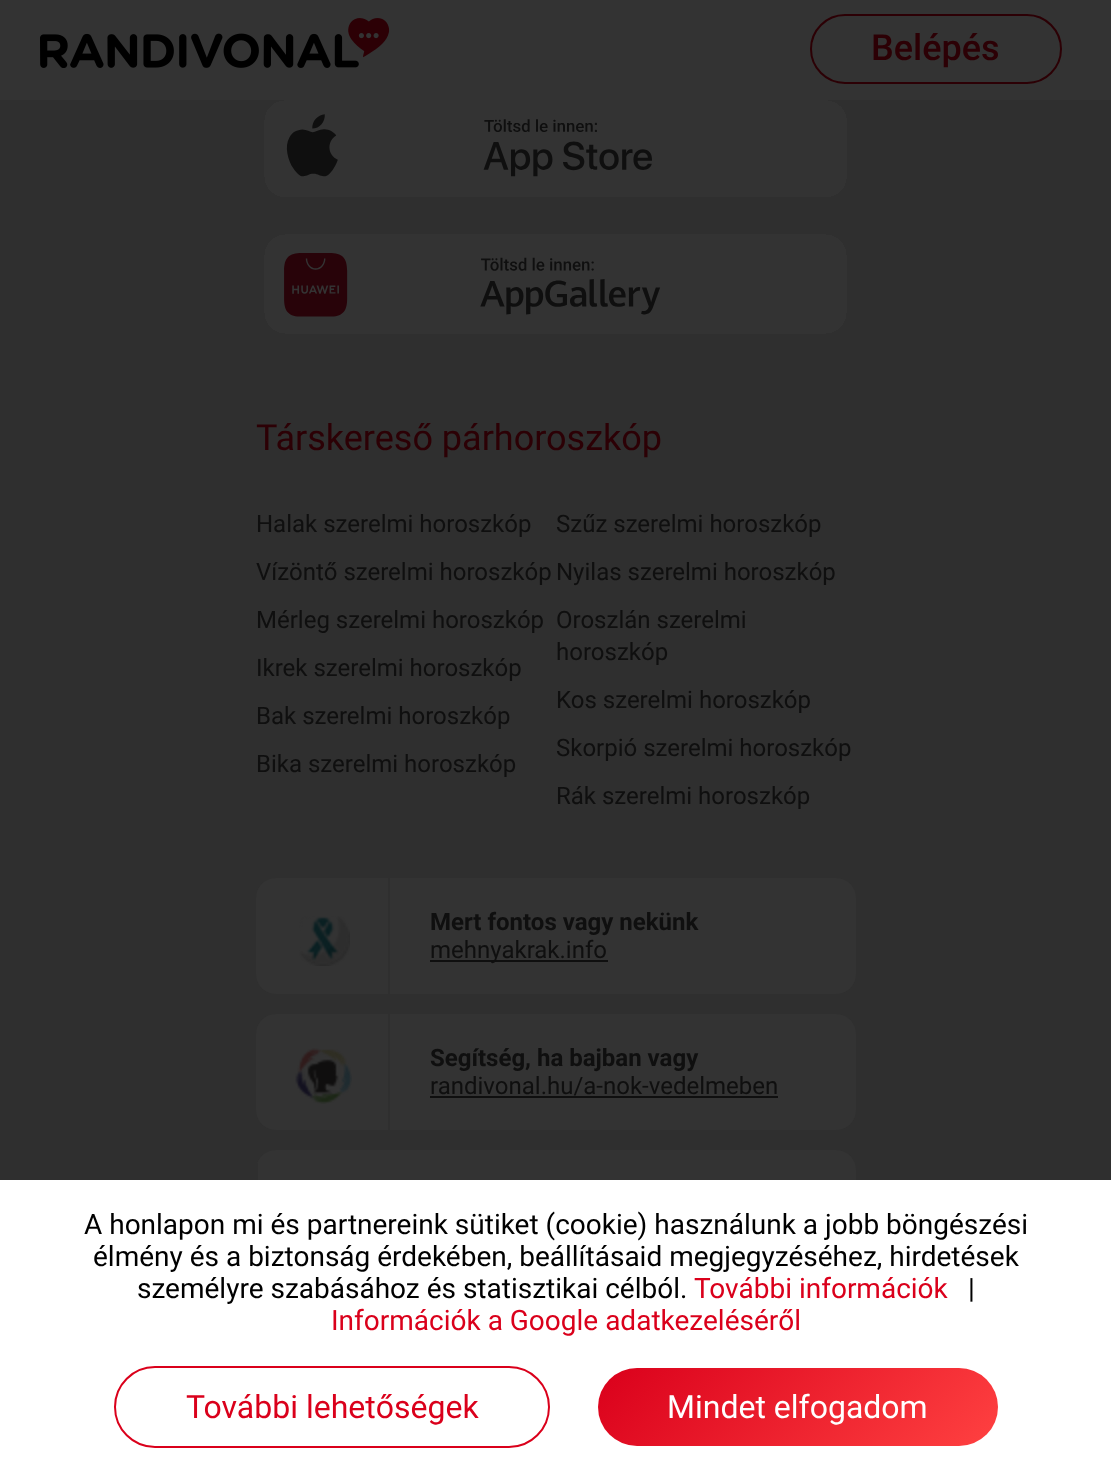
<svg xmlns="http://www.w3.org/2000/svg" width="1111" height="1472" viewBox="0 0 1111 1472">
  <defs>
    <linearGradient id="g1" gradientUnits="userSpaceOnUse" x1="679" y1="1288" x2="918" y2="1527"><stop offset="0" stop-color="#da001b"/><stop offset="1" stop-color="#ff4141"/></linearGradient>
  </defs>
  <rect width="100%" height="100%" fill="#2f2f2f"/>
  <path d="M0 0h1111v100H0z" fill="#333"/>
  <image x="40" y="18" width="350" height="50" href="img/1.png"/>
  <rect x="811" y="15" width="250" height="68" rx="34" fill="none" stroke="#2c0005" stroke-width="2"/>
  <image x="264" y="100" width="583" height="97" href="img/2.png"/>
  <image x="264" y="234" width="583" height="100" href="img/3.png"/>
  <rect x="256" y="878" width="600" height="116" rx="20" fill="#333"/>
  <image x="299" y="916" width="51" height="50" href="img/4.png"/>
  <path d="M388 878h2v116H388z" fill="#2f2f2f"/>
  <path d="M430 960h178v2H430z" fill="#0f0f0f"/>
  <rect x="256" y="1014" width="600" height="116" rx="20" fill="#333"/>
  <image x="295" y="1048" width="57" height="56" href="img/5.png"/>
  <path d="M388 1014h2v116H388z" fill="#2f2f2f"/>
  <path d="M430 1096h348v2H430z" fill="#0f0f0f"/>
  <rect x="256" y="1150" width="600" height="112" rx="20" fill="#333"/>
  <path d="M256 1163h2v17H256z" fill="#2f2f2f"/>
  <path d="M0 1180h1111v292H0z" fill="#fff"/>
  <rect x="115" y="1367" width="434" height="80" rx="40" fill="none" stroke="#da001b" stroke-width="2"/>
  <rect x="598" y="1368" width="400" height="78" rx="39" fill="url(#g1)"/>
  <text x="871" y="60" font-family="Roboto" font-size="36" font-weight="500" fill="#2c0005">Belépés</text>
  <text x="256" y="450" font-family="Roboto" font-size="36" fill="#2c0005">Társkereső párhoroszkóp</text>
  <g font-family="Roboto" font-size="24" fill="#0f0f0f">
    <text x="256" y="532">Halak szerelmi horoszkóp</text>
    <text x="256" y="580">Vízöntő szerelmi horoszkóp</text>
    <text x="256" y="628">Mérleg szerelmi horoszkóp</text>
    <text x="256" y="676">Ikrek szerelmi horoszkóp</text>
    <text x="256" y="724">Bak szerelmi horoszkóp</text>
    <text x="256" y="772">Bika szerelmi horoszkóp</text>
    <text x="556" y="532">Szűz szerelmi horoszkóp</text>
    <text x="556" y="580">Nyilas szerelmi horoszkóp</text>
    <text x="556" y="628">Oroszlán szerelmi</text>
    <text x="556" y="660">horoszkóp</text>
    <text x="556" y="708">Kos szerelmi horoszkóp</text>
    <text x="556" y="756">Skorpió szerelmi horoszkóp</text>
    <text x="556" y="804">Rák szerelmi horoszkóp</text>
  </g>
  <text x="430" y="930" font-family="Roboto" font-size="24" font-weight="bold" fill="#0f0f0f">Mert fontos vagy nekünk</text>
  <text x="430" y="958" font-family="Roboto" font-size="24" fill="#0f0f0f">mehnyakrak.info</text>
  <text x="430" y="1066" font-family="Roboto" font-size="24" font-weight="bold" fill="#0f0f0f">Segítség, ha bajban vagy</text>
  <text x="430" y="1094" font-family="Roboto" font-size="24" fill="#0f0f0f">randivonal.hu/a-nok-vedelmeben</text>
  <g font-family="Roboto" font-size="28" fill="#000">
    <text x="84" y="1234">A honlapon mi és partnereink sütiket (cookie) használunk a jobb böngészési</text>
    <text x="93" y="1266">élmény és a biztonság érdekében, beállításaid megjegyzéséhez, hirdetések</text>
    <text x="137" y="1298">személyre szabásához és statisztikai célból.</text>
  </g>
  <text x="694" y="1298" font-family="Roboto" font-size="28" fill="#da001b">További információk</text>
  <text x="968" y="1298" font-family="Roboto" font-size="28" fill="#000">|</text>
  <text x="331" y="1330" font-family="Roboto" font-size="28" fill="#da001b">Információk a Google adatkezeléséről</text>
  <text x="186" y="1418" font-family="Roboto" font-size="32" fill="#da001b">További lehetőségek</text>
  <text x="667" y="1418" font-family="Roboto" font-size="32" fill="#fff">Mindet elfogadom</text>
</svg>
